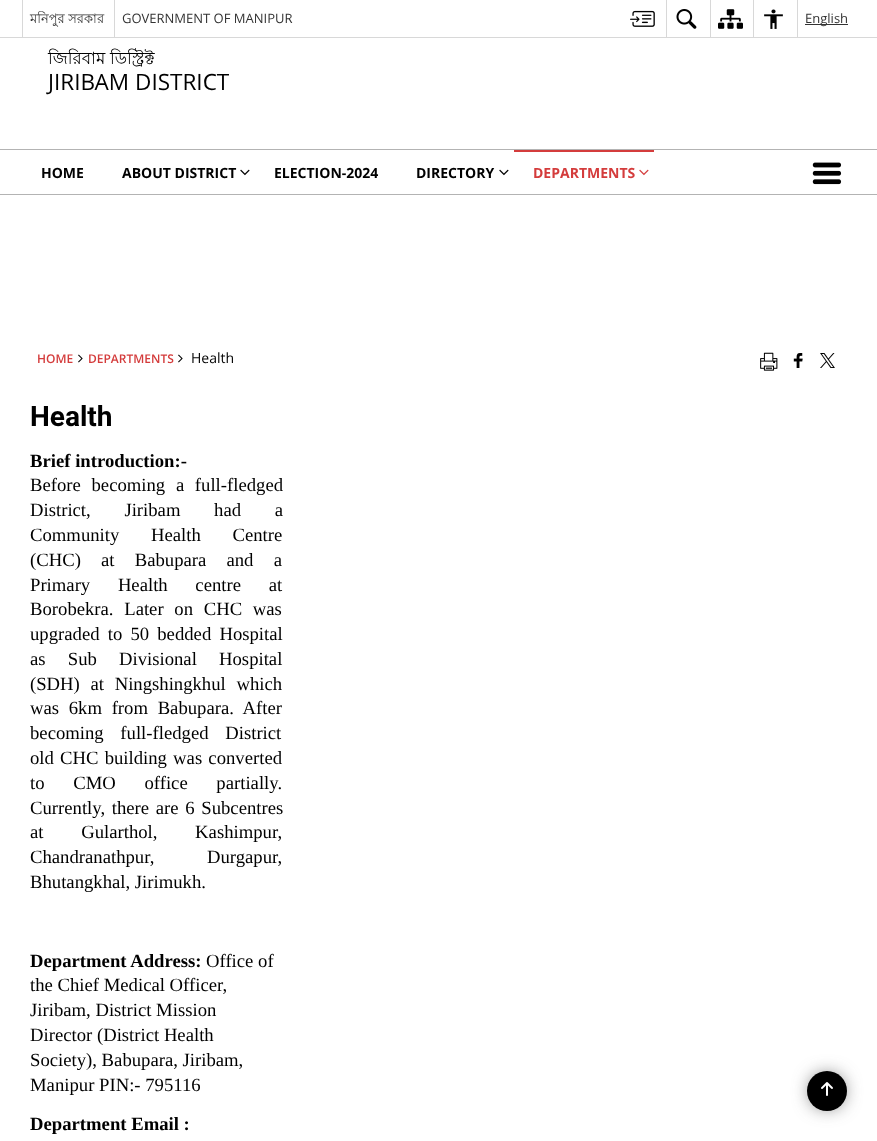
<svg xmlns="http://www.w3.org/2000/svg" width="877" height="1141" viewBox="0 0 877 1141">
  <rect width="100%" height="100%" fill="#fff"/>
  <path d="M0 37h877v1H0z" fill="#d8d8d8"/>
  <path d="M22 0h1v37H22z" fill="#d8d8d8"/>
  <path d="M114 0h1v37H114z" fill="#d8d8d8"/>
  <image x="630" y="10" width="25" height="17" href="img/1.png"/>
  <path d="M666 0h1v37H666z" fill="#d8d8d8"/>
  <image x="676" y="9" width="21" height="20" href="img/2.png"/>
  <path d="M710 0h1v37H710z" fill="#d8d8d8"/>
  <image x="718" y="9" width="25" height="20" href="img/3.png"/>
  <path d="M753 0h1v37H753z" fill="#d8d8d8"/>
  <image x="764" y="9" width="19" height="20" href="img/4.png"/>
  <path d="M797 0h1v37H797z" fill="#d8d8d8"/>
  <path d="M805 24h43v1H805z" fill="#333"/>
  <path d="M0 149h877v1H0z" fill="#b3b3b3"/>
  <path d="M0 194h877v1H0z" fill="#b3b3b3"/>
  <image x="240" y="169" width="10" height="7" href="img/5.png"/>
  <image x="499" y="169" width="10" height="7" href="img/5.png"/>
  <path d="M514 150h140v2H514z" fill="#d43c3c"/>
  <image x="639" y="169" width="10" height="7" href="img/6.png"/>
  <image x="812" y="162" width="30" height="23" href="img/7.png"/>
  <image x="78" y="354" width="5" height="9" href="img/8.png"/>
  <image x="178" y="354" width="5" height="9" href="img/8.png"/>
  <image x="760" y="352" width="18" height="19" href="img/9.png"/>
  <image x="793" y="353" width="10" height="15" href="img/10.png"/>
  <image x="820" y="353" width="15" height="15" href="img/11.png"/>
  <rect x="812" y="1076" width="30" height="30" rx="15" fill="#3c3c3c" filter="blur(9.5px)"/>
  <circle cx="827" cy="1091" r="20" fill="#000"/>
  <image x="821" y="1082" width="12" height="14" href="img/12.png"/>
  <text x="30" y="23" font-family="Lohit Bengali" font-size="13" fill="#333">মনিপুর সরকার</text>
  <g font-family="Open Sans" font-size="13" fill="#333">
    <text x="122" y="23">GOVERNMENT OF MANIPUR</text>
    <text x="805" y="23">English</text>
  </g>
  <text x="48" y="64" font-family="Lohit Bengali" font-size="16.75" fill="#000">জিরিবাম ডিস্ট্রিক্ট</text>
  <text x="48" y="90" font-family="Open Sans" font-size="22.5" fill="#000">JIRIBAM DISTRICT</text>
  <g font-family="Open Sans" font-size="14" font-weight="bold" fill="#000">
    <text x="41" y="178">HOME</text>
    <text x="122" y="178">ABOUT DISTRICT</text>
    <text x="274" y="178">ELECTION-2024</text>
    <text x="416" y="178">DIRECTORY</text>
  </g>
  <text x="533" y="178" font-family="Open Sans" font-size="14" font-weight="bold" fill="#d43c3c">DEPARTMENTS</text>
  <g font-family="Open Sans" font-size="12" font-weight="600" fill="#d43c3c">
    <text x="37" y="363">HOME</text>
    <text x="88" y="363">DEPARTMENTS</text>
  </g>
  <text x="191" y="363" font-family="Open Sans" font-size="14" fill="#000">Health</text>
  <text x="30" y="426" font-family="Roboto" font-size="28" font-weight="bold" fill="#000">Health</text>
  <text x="30" y="467" font-family="Liberation Serif" font-size="18.7" font-weight="bold" fill="#000">Brief introduction:-</text>
  <g font-family="Liberation Serif" font-size="18.7" fill="#000">
    <text x="30" y="491" word-spacing="6">Before becoming a full-fledged</text>
    <text x="30" y="516" word-spacing="29">District, Jiribam had a</text>
    <text x="30" y="541" word-spacing="27">Community Health Centre</text>
    <text x="30" y="566" word-spacing="15.5">(CHC) at Babupara and a</text>
    <text x="30" y="591" word-spacing="23">Primary Health centre at</text>
    <text x="30" y="615" word-spacing="6">Borobekra. Later on CHC was</text>
    <text x="30" y="640" word-spacing="3.5">upgraded to 50 bedded Hospital</text>
    <text x="30" y="665" word-spacing="17.5">as Sub Divisional Hospital</text>
    <text x="30" y="690" word-spacing="6">(SDH) at Ningshingkhul which</text>
    <text x="30" y="714" word-spacing="5">was 6km from Babupara. After</text>
    <text x="30" y="739" word-spacing="12">becoming full-fledged District</text>
    <text x="30" y="764" word-spacing="1.5">old CHC building was converted</text>
    <text x="30" y="789" word-spacing="24">to CMO office partially.</text>
    <text x="30" y="814" word-spacing="2">Currently, there are 6 Subcentres</text>
    <text x="30" y="838" word-spacing="33">at Gularthol, Kashimpur,</text>
    <text x="30" y="863" word-spacing="48">Chandranathpur, Durgapur,</text>
    <text x="30" y="888">Bhutangkhal, Jirimukh.</text>
  </g>
  <text x="30" y="967" font-family="Liberation Serif" font-size="18.7" font-weight="bold" fill="#000">Department Address:</text>
  <g font-family="Liberation Serif" font-size="18.7" fill="#000">
    <text x="206" y="967">Office of</text>
    <text x="30" y="991">the Chief Medical Officer,</text>
    <text x="30" y="1016">Jiribam, District Mission</text>
    <text x="30" y="1041">Director (District Health</text>
    <text x="30" y="1066">Society), Babupara, Jiribam,</text>
    <text x="30" y="1091">Manipur PIN:- 795116</text>
  </g>
  <text x="30" y="1130" font-family="Liberation Serif" font-size="18.7" font-weight="bold" fill="#000">Department Email :</text>
</svg>
